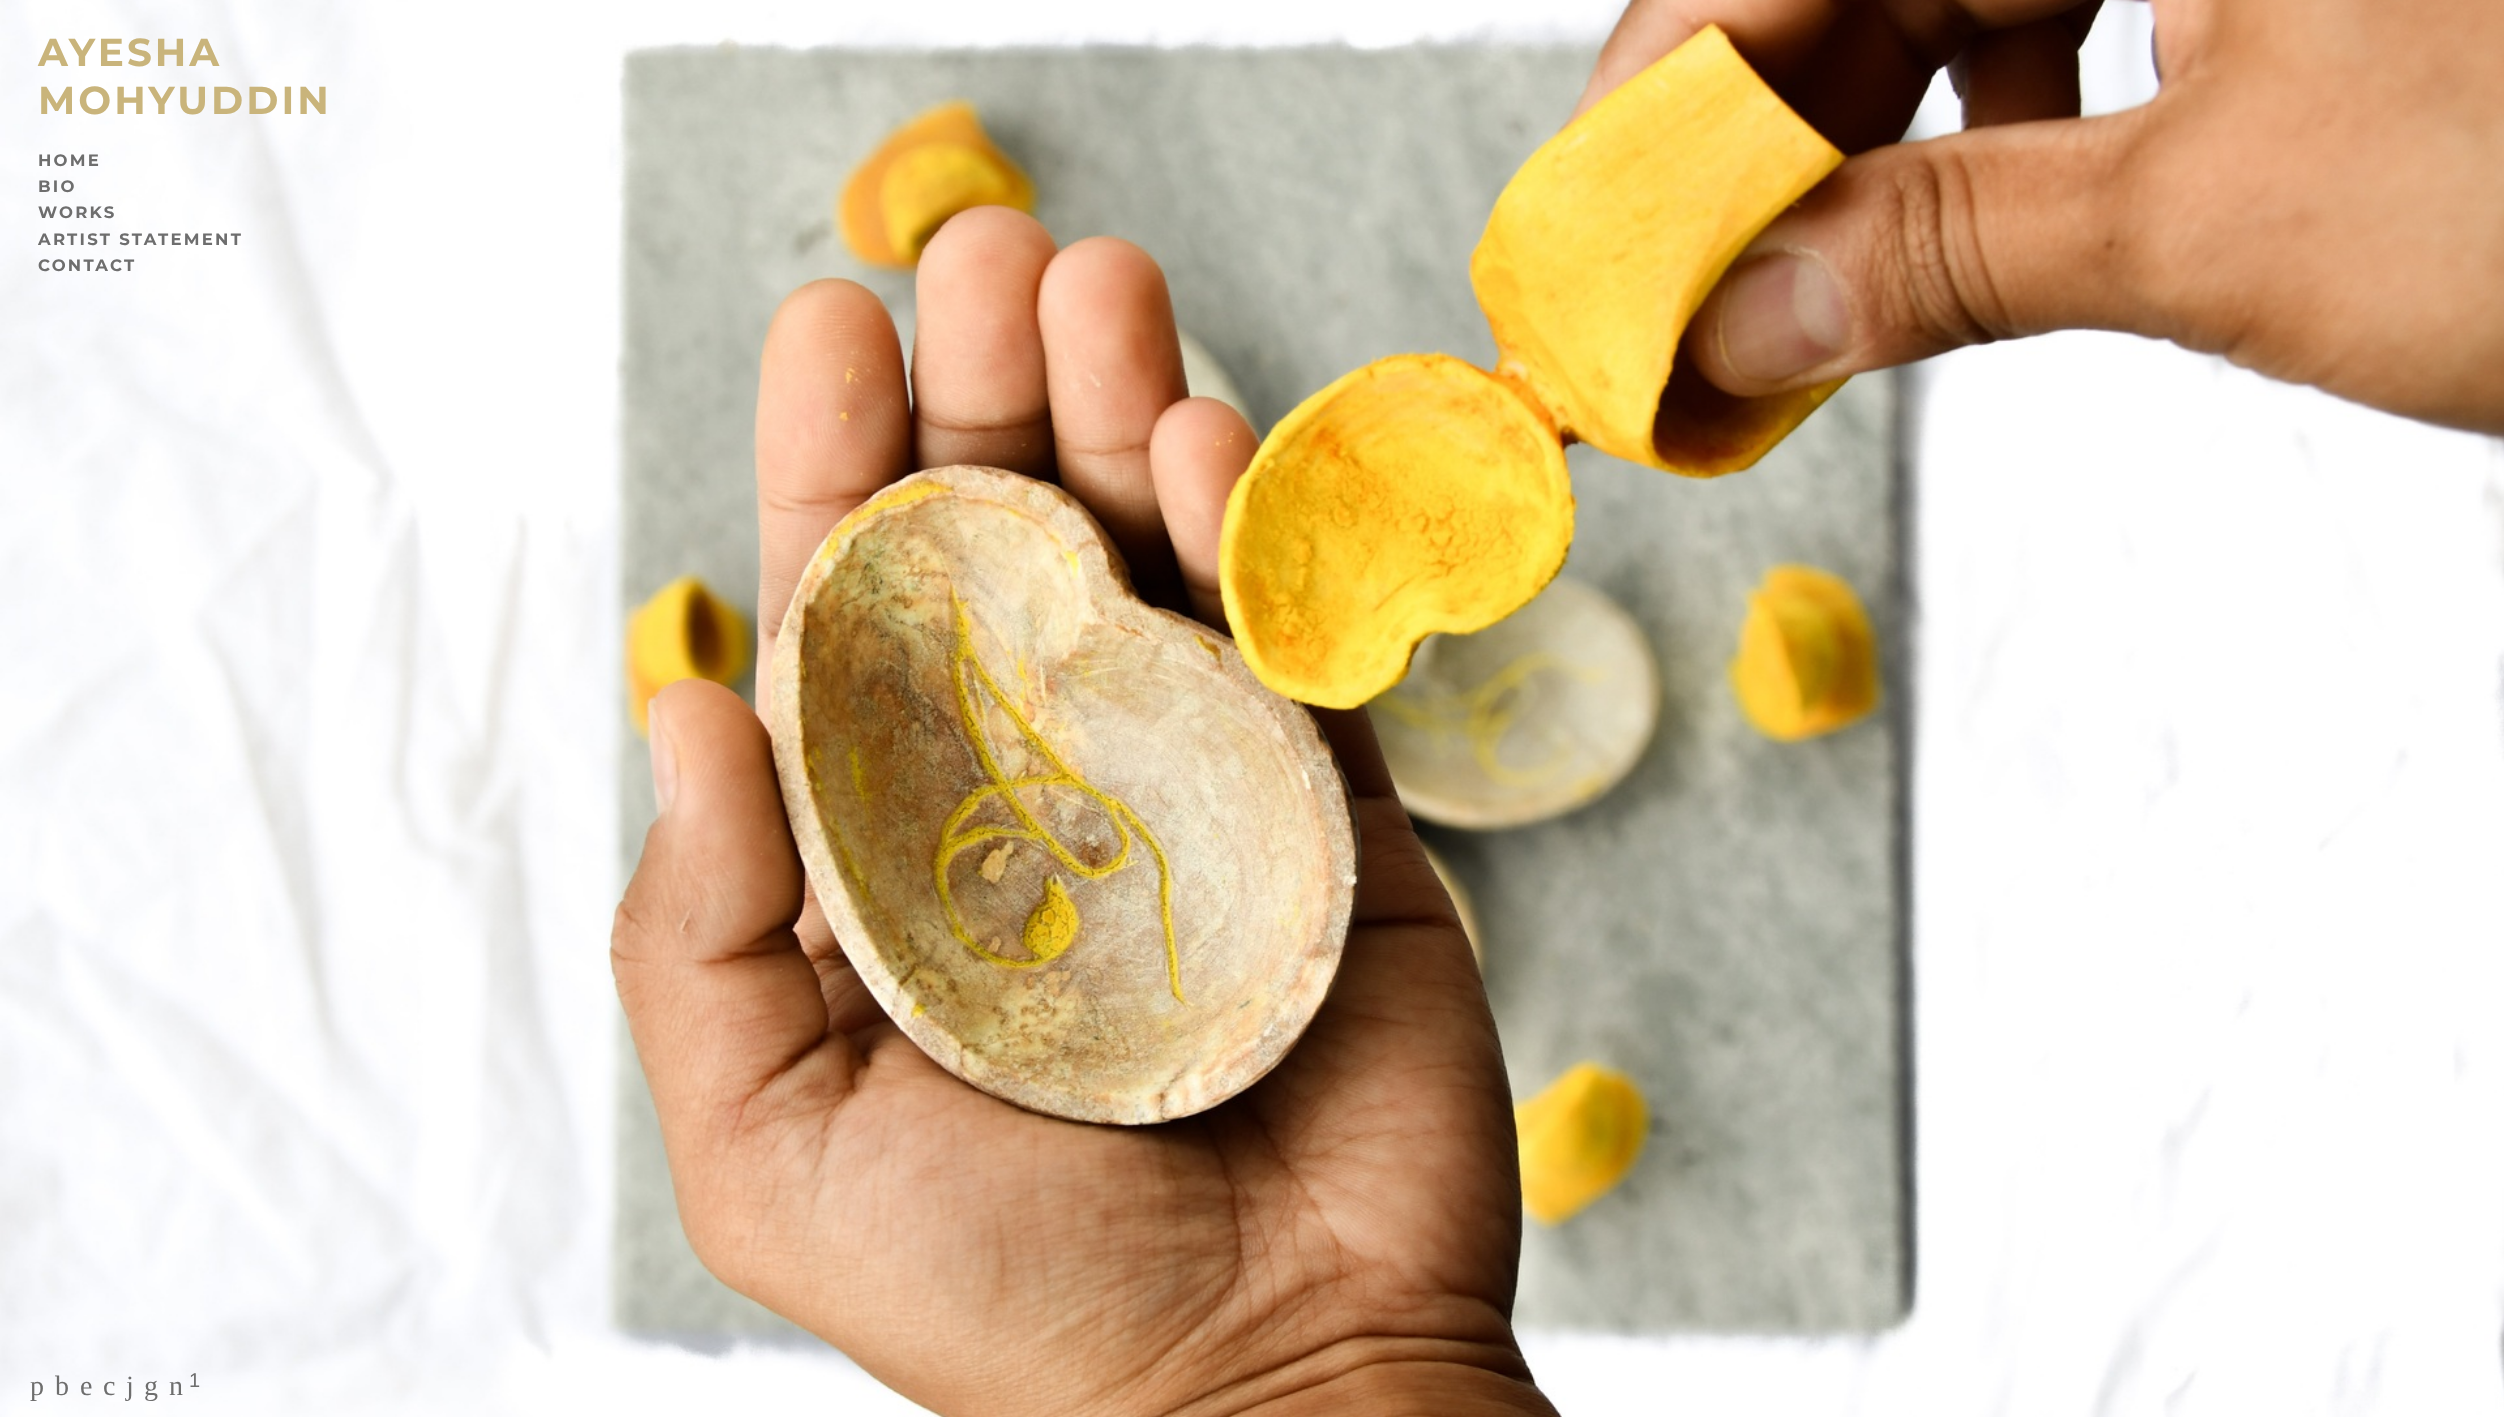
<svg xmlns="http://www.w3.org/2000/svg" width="2504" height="1417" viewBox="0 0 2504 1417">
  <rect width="100%" height="100%" fill="#fff"/>
  <image x="0" y="0" width="2504" height="1417" href="img/1.png"/>
  <g font-family="Montserrat" font-size="39" font-weight="bold" letter-spacing="3" fill="#c9b47b">
    <text x="38" y="66">AYESHA</text>
    <text x="38" y="114">MOHYUDDIN</text>
  </g>
  <g font-family="Montserrat" font-size="16.5" font-weight="bold" letter-spacing="2.25" fill="#6e6e6e">
    <text x="38" y="166">HOME</text>
    <text x="38" y="192">BIO</text>
    <text x="38" y="218">WORKS</text>
    <text x="38" y="245">ARTIST STATEMENT</text>
    <text x="38" y="271">CONTACT</text>
  </g>
  <g font-family="Liberation Serif" font-size="28" fill="#6e6e6e">
    <text x="30" y="1395">p</text>
    <text x="55" y="1395">b</text>
    <text x="80" y="1395">e</text>
    <text x="103" y="1395">c</text>
    <text x="126" y="1395">j</text>
    <text x="144" y="1395">g</text>
    <text x="169" y="1395">n</text>
  </g>
  <text x="189" y="1387" font-family="Liberation Sans" font-size="20" fill="#6e6e6e">1</text>
</svg>
